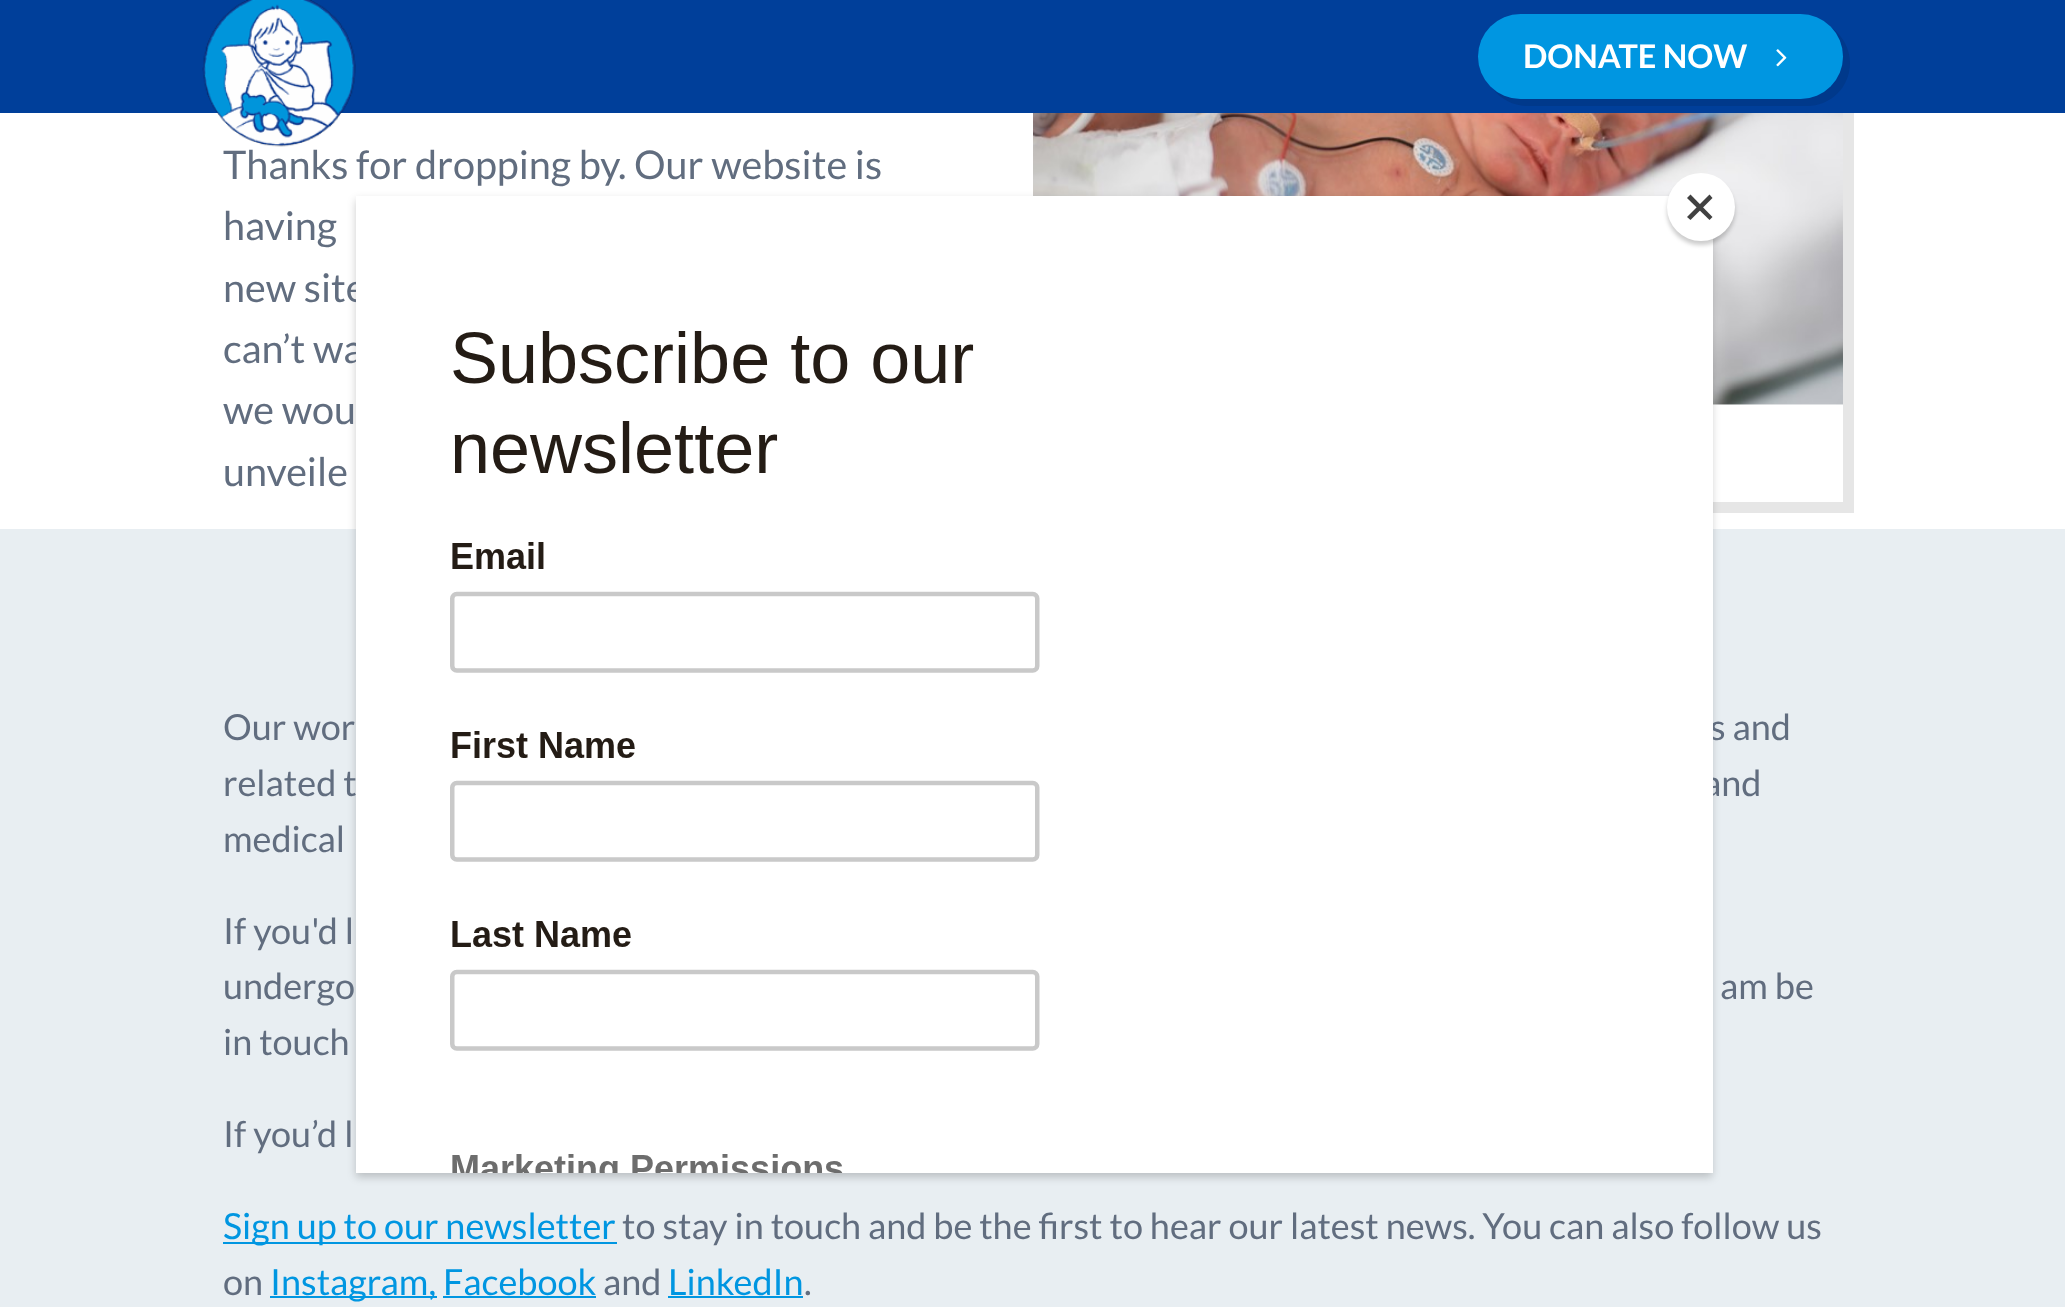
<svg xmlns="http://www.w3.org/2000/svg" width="2065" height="1307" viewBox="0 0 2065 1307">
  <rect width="100%" height="100%" fill="#fff"/>
  <path d="M1044 502V513H1854V-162H1843V502Z" fill="#e6e6e6"/>
  <path d="M0 0h2065v113H0z" fill="#003f9a"/>
  <image x="202" y="0" width="154" height="147" href="img/1.png"/>
  <path d="M1494 90C1502 100 1514 106 1528 106H1807C1831 106 1850 87 1850 63C1850 49 1843 36 1832 28C1839 36 1843 46 1843 56C1843 80 1824 99 1800 99H1521C1511 99 1501 95 1494 90Z" fill="#00398b"/>
  <rect x="1478" y="14" width="365" height="85" rx="42.5" fill="#0096e1"/>
  <image x="1776" y="49" width="11" height="18" href="img/2.png"/>
  <image x="1033" y="113" width="810" height="292" href="img/3.png"/>
  <path d="M0 529h2065v778H0z" fill="#e8eef2"/>
  <path d="M356 200h1356v977H356z" fill="#00000033" filter="blur(4.5px)"/>
  <path d="M223 1242h394v2H223z" fill="#0096e1"/>
  <path d="M270 1296h167v2H270z" fill="#0096e1"/>
  <path d="M668 1296h135v2H668z" fill="#0096e1"/>
  <path d="M443 1296h153v2H443z" fill="#0096e1"/>
  <text x="1523" y="68" font-family="Lato" font-size="32.5" font-weight="bold" fill="#fff">DONATE NOW</text>
  <g font-family="Lato" font-size="39.6" fill="#616d7f">
    <text x="223" y="179">Thanks for dropping by. Our website is</text>
    <text x="223" y="240">having</text>
    <text x="223" y="302">new site</text>
    <text x="223" y="363">can’t wa</text>
    <text x="223" y="424">we wou</text>
    <text x="223" y="486">unveile</text>
  </g>
  <g font-family="Lato" font-size="36" fill="#616d7f">
    <text x="223" y="740">Our wor</text>
    <text x="1710" y="740">s and</text>
    <text x="223" y="796">related t</text>
    <text x="1703" y="796">and</text>
  </g>
  <image x="356" y="196" width="1357" height="977" href="img/4.png"/>
  <rect x="1667" y="178" width="68" height="67" rx="33.5" fill="#00000033" filter="blur(2px)"/>
  <circle cx="1701" cy="207" r="34" fill="#fff"/>
  <path d="M1709.5 194.5L1712.5 198L1690.5 220L1687 217Z" fill="#414141"/>
  <path d="M1687 198L1690.5 194.5L1712.5 217L1709.5 220Z" fill="#414141"/>
  <g font-family="Lato" font-size="36" fill="#616d7f">
    <text x="223" y="852">medical</text>
    <text x="223" y="944">If you'd l</text>
    <text x="223" y="999">undergo</text>
    <text x="1720" y="999">am be</text>
    <text x="223" y="1055">in touch</text>
    <text x="223" y="1147">If you’d l</text>
  </g>
  <text x="223" y="1239" font-family="Lato" font-size="36" fill="#0096e1">Sign up to our newsletter</text>
  <g font-family="Lato" font-size="36" fill="#616d7f">
    <text x="622" y="1239">to stay in touch and be the first to hear our latest news. You can also follow us</text>
    <text x="223" y="1295">on</text>
  </g>
  <text x="270" y="1295" font-family="Lato" font-size="36" fill="#0096e1">Instagram, Facebook</text>
  <text x="603" y="1295" font-family="Lato" font-size="36" fill="#616d7f">and</text>
  <text x="668" y="1295" font-family="Lato" font-size="36" fill="#0096e1">LinkedIn</text>
  <text x="804" y="1295" font-family="Lato" font-size="36" fill="#616d7f">.</text>
</svg>
